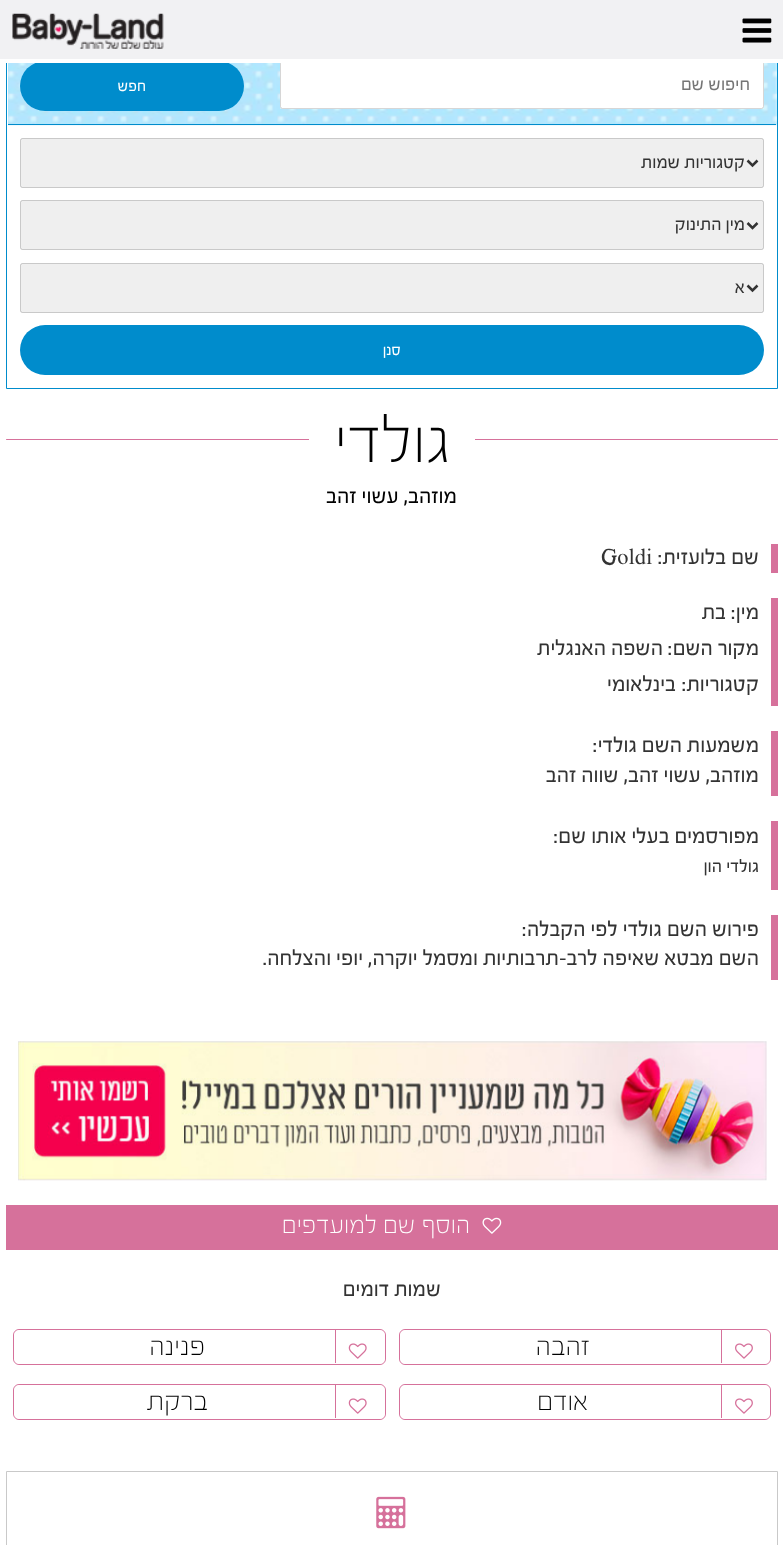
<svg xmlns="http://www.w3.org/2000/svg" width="783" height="1545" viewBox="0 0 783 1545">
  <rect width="100%" height="100%" fill="#fff"/>
  <path d="M6.5 48.5h771v340H6.5z" fill="none" stroke="#008ccc"/>
  <image x="8" y="63" width="769" height="63" href="img/3.png"/>
  <rect x="280" y="61" width="484" height="48" rx="2.5" fill="#fff"/>
  <rect x="280.5" y="61.5" width="483" height="47" rx="2" fill="none" stroke="#33333333"/>
  <rect x="20" y="61" width="224" height="50" rx="25" fill="#008ccc"/>
  <path d="M0 59h783v4H0z" fill="#fff"/>
  <path d="M0 0h783v59H0z" fill="#f1f1f3"/>
  <image x="12" y="13" width="152" height="36" href="img/1.png"/>
  <image x="742" y="18" width="30" height="25" href="img/2.png"/>
  <path d="M8 124h768v1H8z" fill="#008ccc"/>
  <rect x="20" y="138" width="744" height="50" rx="2.5" fill="#efefef"/>
  <rect x="20.5" y="138.5" width="743" height="49" rx="2" fill="none" stroke="#33333333"/>
  <path d="M747.5 160.5L752.5 165.5L757.5 160.5" fill="none" stroke="#333" stroke-width="2.5"/>
  <rect x="20" y="200" width="744" height="50" rx="2.5" fill="#efefef"/>
  <rect x="20.5" y="200.5" width="743" height="49" rx="2" fill="none" stroke="#33333333"/>
  <path d="M747.5 223L752.5 228L757.5 223" fill="none" stroke="#333" stroke-width="2.5"/>
  <rect x="20" y="263" width="744" height="50" rx="2.5" fill="#efefef"/>
  <rect x="20.5" y="263.5" width="743" height="49" rx="2" fill="none" stroke="#33333333"/>
  <path d="M747.5 285.5L752.5 290.5L757.5 285.5" fill="none" stroke="#333" stroke-width="2.5"/>
  <rect x="20" y="325" width="744" height="50" rx="25" fill="#008ccc"/>
  <rect x="6" y="439" width="772" height="1" rx="0.5" fill="#d6719b"/>
  <path d="M309 439h166v1H309z" fill="#fff"/>
  <path d="M771 544h7v29H771z" fill="#d6719b"/>
  <path d="M771 598h7v108H771z" fill="#d6719b"/>
  <path d="M771 731h7v65H771z" fill="#d6719b"/>
  <path d="M771 821h7v69H771z" fill="#d6719b"/>
  <path d="M771 915h7v65H771z" fill="#d6719b"/>
  <image x="18" y="1041" width="749" height="140" href="img/4.png"/>
  <path d="M6 1205h772v45H6z" fill="#d6719b"/>
  <image x="482" y="1217" width="20" height="17" href="img/5.png"/>
  <rect x="399.5" y="1329.5" width="371" height="35" rx="5.5" fill="none" stroke="#d6719b"/>
  <rect x="400" y="1330" width="370" height="34" rx="6" fill="#fff"/>
  <path d="M721 1329h1v34H721z" fill="#d6719b"/>
  <image x="735" y="1343" width="18" height="16" href="img/6.png"/>
  <rect x="13.5" y="1329.5" width="372" height="35" rx="5.5" fill="none" stroke="#d6719b"/>
  <rect x="14" y="1330" width="371" height="34" rx="6" fill="#fff"/>
  <path d="M335 1329h1v34H335z" fill="#d6719b"/>
  <image x="348" y="1343" width="19" height="16" href="img/7.png"/>
  <rect x="399.5" y="1384.5" width="371" height="35" rx="5.5" fill="none" stroke="#d6719b"/>
  <rect x="400" y="1385" width="370" height="34" rx="6" fill="#fff"/>
  <path d="M721 1384h1v34H721z" fill="#d6719b"/>
  <image x="735" y="1398" width="18" height="16" href="img/6.png"/>
  <rect x="13.5" y="1384.5" width="372" height="35" rx="5.5" fill="none" stroke="#d6719b"/>
  <rect x="14" y="1385" width="371" height="34" rx="6" fill="#fff"/>
  <path d="M335 1384h1v34H335z" fill="#d6719b"/>
  <image x="348" y="1398" width="19" height="16" href="img/7.png"/>
  <path d="M6.5 1471.5h771v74H6.5z" fill="none" stroke="#c9c9c9"/>
  <image x="376" y="1496" width="30" height="33" href="img/8.png"/>
  <text x="750" y="90" font-family="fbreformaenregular" font-size="18.75" direction="rtl" fill="#757575">חיפוש שם</text>
  <text x="146" y="91" font-family="fbreformaenregular" font-size="16" direction="rtl" fill="#fff">חפש</text>
  <g font-family="fbreformaenregular" font-size="18.75" direction="rtl" fill="#333">
    <text x="745" y="168">קטגוריות שמות</text>
    <text x="745" y="230">מין התינוק</text>
    <text x="745" y="293">א</text>
  </g>
  <text x="401" y="355" font-family="fbreformaenregular" font-size="16" direction="rtl" fill="#fff">סנן</text>
  <text x="451" y="462" font-family="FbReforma" font-size="67" direction="rtl" fill="#000">גולדי</text>
  <text x="457" y="503" font-family="fbreformaenregular" font-size="22.5" direction="rtl" fill="#000">מוזהב, עשוי זהב</text>
  <text x="759" y="564" font-family="fbreformaenregular" font-size="22.4" direction="rtl" fill="#333">שם בלועזית:</text>
  <text x="601" y="564" font-family="fbreformaenregular" font-size="22.5" fill="#333">Goldi</text>
  <text x="759" y="619" font-family="fbreformaenregular" font-size="22.4" direction="rtl" fill="#333">מין:</text>
  <text x="726" y="619" font-family="fbreformaenregular" font-size="22.5" direction="rtl" fill="#333">בת</text>
  <text x="759" y="655" font-family="fbreformaenregular" font-size="22.4" direction="rtl" fill="#333">מקור השם:</text>
  <text x="663" y="655" font-family="fbreformaenregular" font-size="22.5" direction="rtl" fill="#333">השפה האנגלית</text>
  <text x="759" y="691" font-family="fbreformaenregular" font-size="22.4" direction="rtl" fill="#333">קטגוריות:</text>
  <text x="676" y="691" font-family="fbreformaenregular" font-size="22.5" direction="rtl" fill="#333">בינלאומי</text>
  <text x="759" y="752" font-family="fbreformaenregular" font-size="22.4" direction="rtl" fill="#333">משמעות השם גולדי:</text>
  <text x="759" y="782" font-family="fbreformaenregular" font-size="22.5" direction="rtl" fill="#333">מוזהב, עשוי זהב, שווה זהב</text>
  <text x="759" y="843" font-family="fbreformaenregular" font-size="22.4" direction="rtl" fill="#333">מפורסמים בעלי אותו שם:</text>
  <text x="759" y="872" font-family="fbreformaenregular" font-size="18.75" direction="rtl" fill="#333">גולדי הון</text>
  <text x="759" y="936" font-family="fbreformaenregular" font-size="22.4" direction="rtl" fill="#333">פירוש השם גולדי לפי הקבלה:</text>
  <text x="759" y="965" font-family="fbreformaenregular" font-size="22.5" direction="rtl" fill="#333">השם מבטא שאיפה לרב-תרבותיות ומסמל יוקרה, יופי והצלחה.</text>
  <text x="470" y="1233" font-family="FbReforma" font-size="25.75" direction="rtl" fill="#fff">הוסף שם למועדפים</text>
  <text x="441" y="1296" font-family="fbreformaenregular" font-size="22.4" direction="rtl" fill="#333">שמות דומים</text>
  <g font-family="FbReforma" font-size="28" direction="rtl" fill="#000">
    <text x="590" y="1355">זהבה</text>
    <text x="205" y="1355">פנינה</text>
    <text x="588" y="1410">אודם</text>
    <text x="208" y="1410">ברקת</text>
  </g>
</svg>
